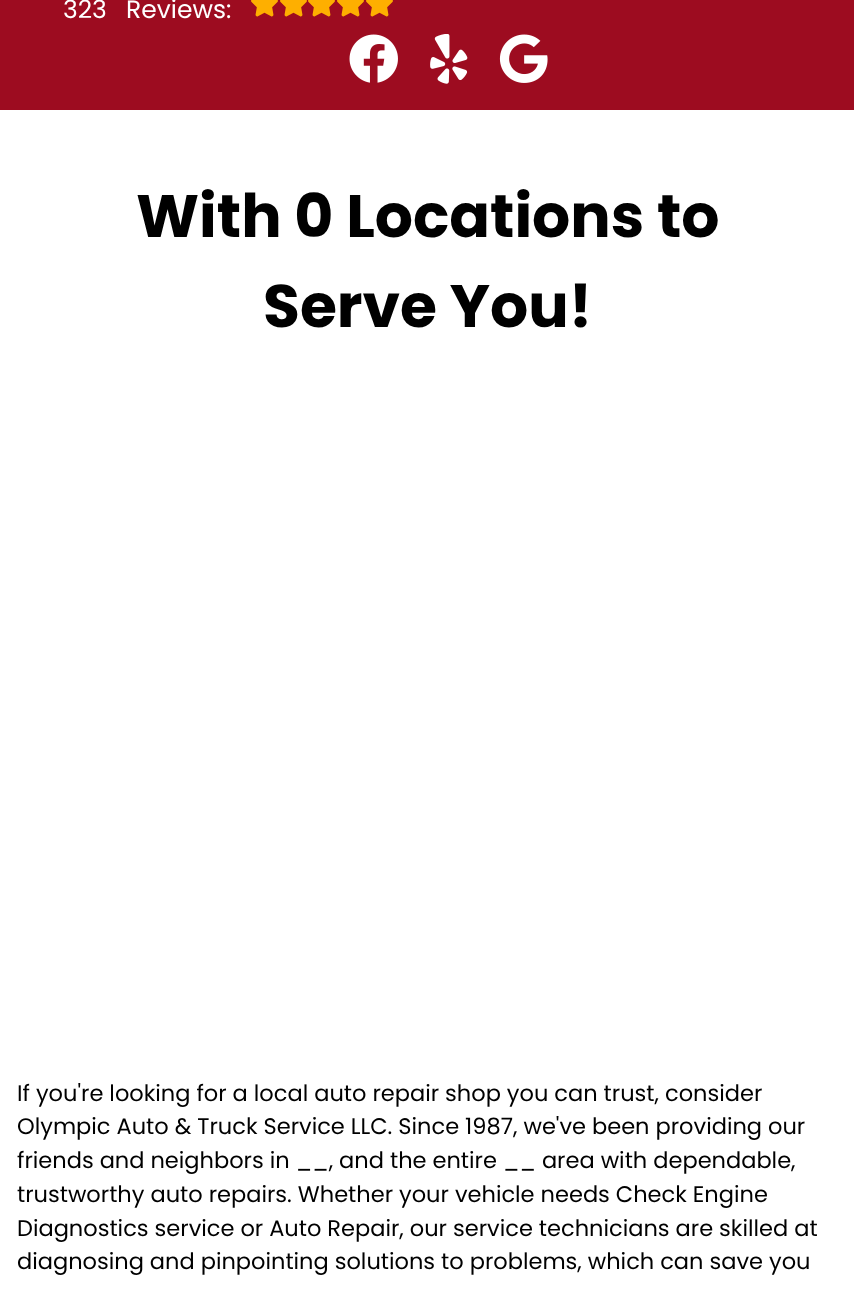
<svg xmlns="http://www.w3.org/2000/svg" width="854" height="1289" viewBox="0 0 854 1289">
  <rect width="100%" height="100%" fill="#fff"/>
  <path d="M0 0h854v110H0z" fill="#9d0c20"/>
  <image x="251" y="0" width="142" height="17" href="img/1.png"/>
  <image x="349" y="34" width="49" height="49" href="img/2.png"/>
  <image x="430" y="34" width="38" height="50" href="img/3.png"/>
  <image x="499" y="34" width="49" height="49" href="img/4.png"/>
  <g font-family="Poppins" font-size="25" fill="#fff">
    <text x="63" y="18">323</text>
    <text x="126" y="18">Reviews:</text>
  </g>
  <g font-family="Poppins" font-size="60" font-weight="bold" fill="#000">
    <text x="136" y="237">With 0 Locations to</text>
    <text x="263" y="327">Serve You!</text>
  </g>
  <g font-family="Poppins" font-size="22.5" fill="#000">
    <text x="17" y="1101">If you're looking for a local auto repair shop you can trust, consider</text>
    <text x="17" y="1134">Olympic Auto &amp; Truck Service LLC. Since 1987, we've been providing our</text>
    <text x="17" y="1168">friends and neighbors in __, and the entire __ area with dependable,</text>
    <text x="17" y="1202">trustworthy auto repairs. Whether your vehicle needs Check Engine</text>
    <text x="17" y="1236">Diagnostics service or Auto Repair, our service technicians are skilled at</text>
    <text x="17" y="1269">diagnosing and pinpointing solutions to problems, which can save you</text>
  </g>
</svg>
